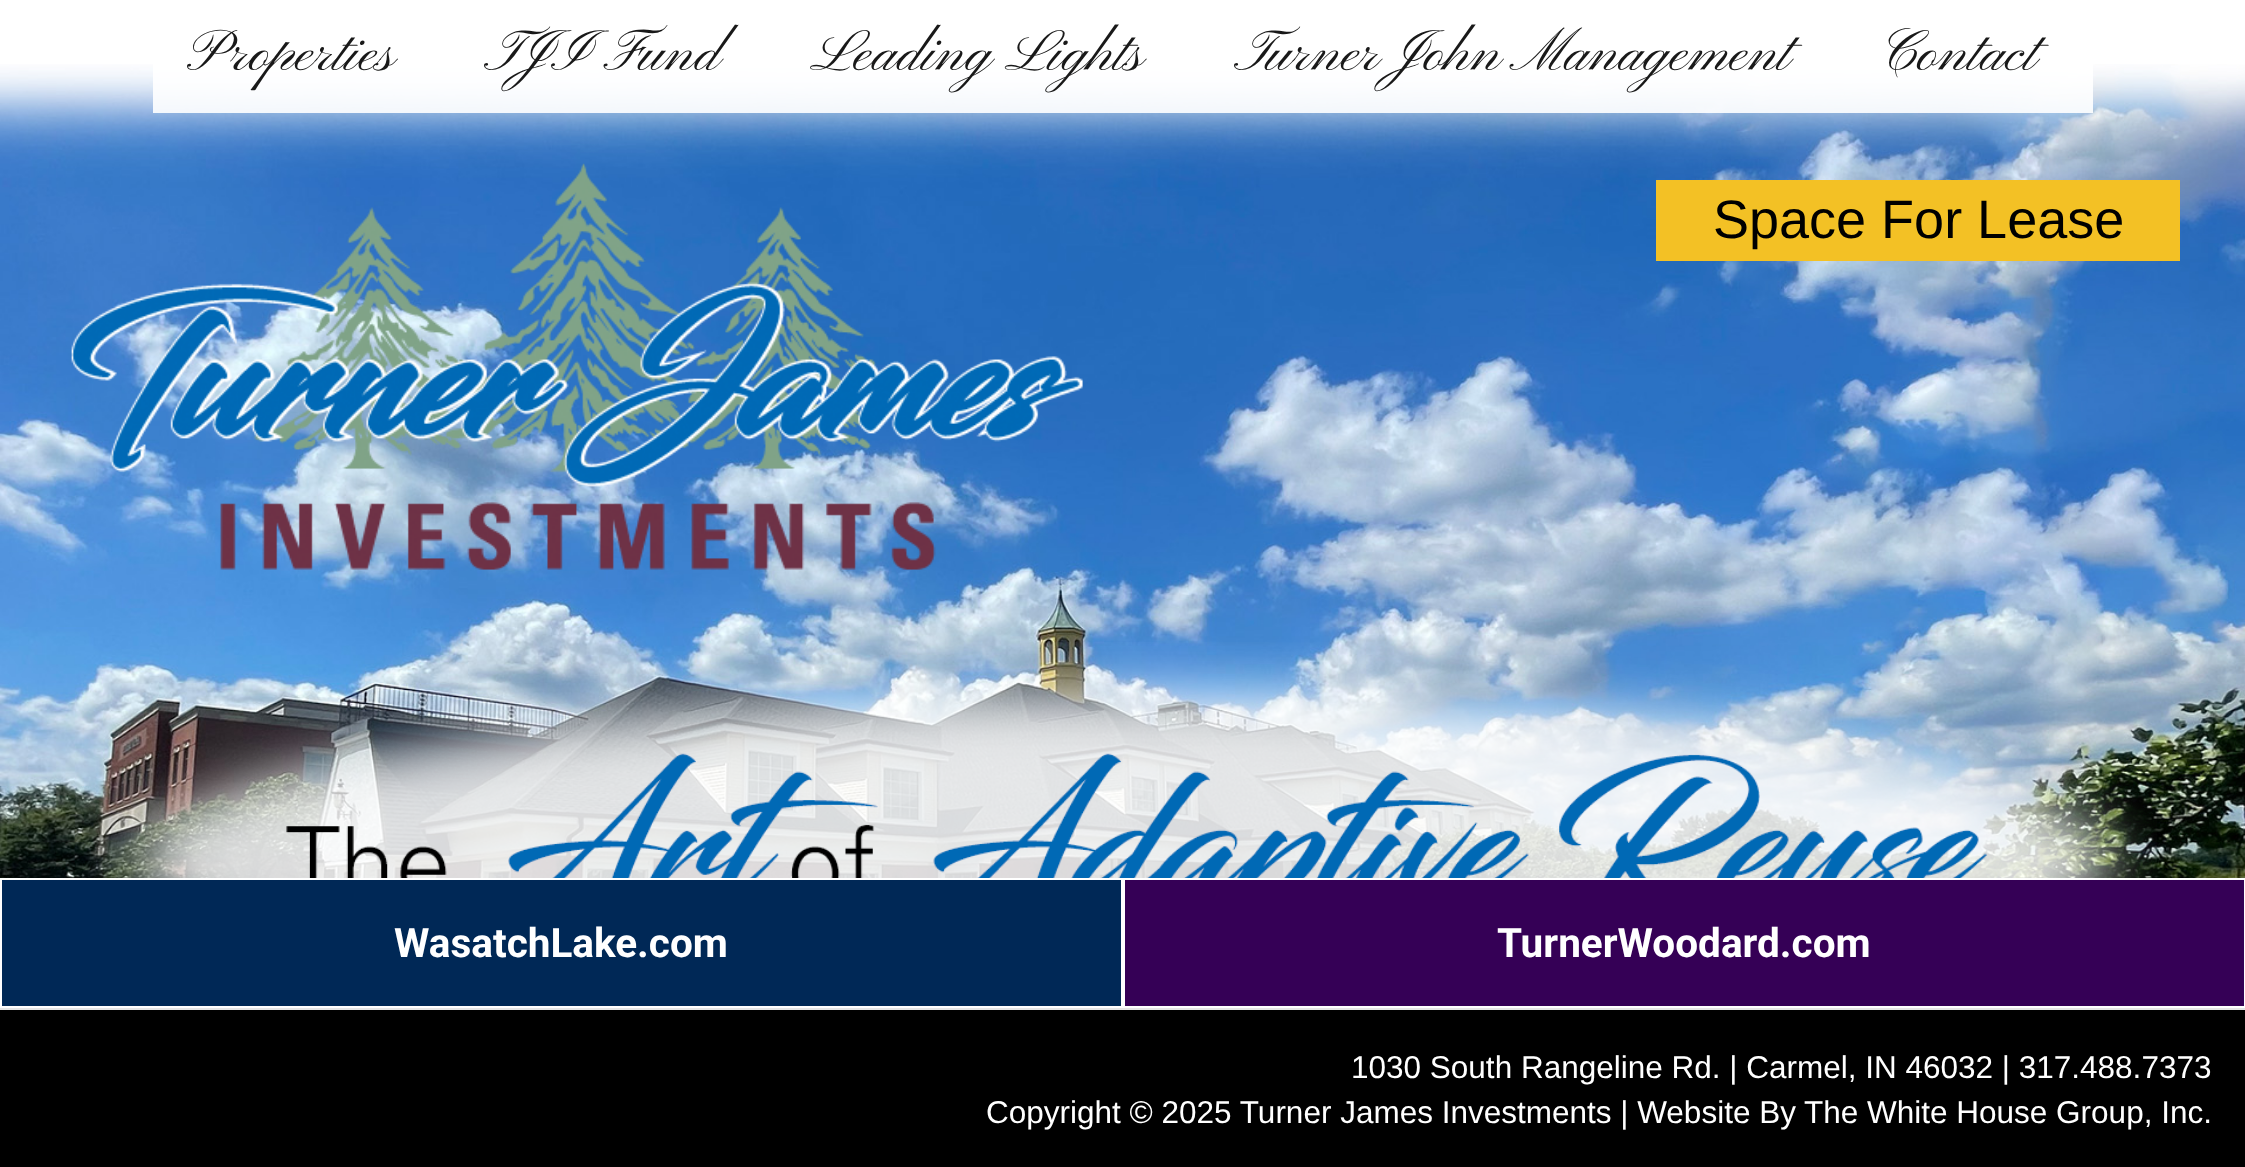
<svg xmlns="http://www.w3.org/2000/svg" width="2245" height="1167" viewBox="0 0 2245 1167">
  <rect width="100%" height="100%" fill="#fff"/>
  <image x="0" y="64" width="2245" height="814" href="img/1.png"/>
  <path d="M153 64h1940v49H153z" fill="#ffffffe6"/>
  <image x="71" y="163" width="1012" height="407" href="img/2.png"/>
  <path d="M1656 180h524v81H1656z" fill="#f3c125"/>
  <image x="88" y="642" width="2069" height="236" href="img/3.png"/>
  <path d="M2 880h1119v126H2z" fill="#002856"/>
  <path d="M1125 880h1119v126H1125z" fill="#350056"/>
  <path d="M0 1010h2245v157H0z" fill="#000"/>
  <path d="M0 1008h2245v2H0z" fill="#e5e5e5"/>
  <g font-family="Pinyon Script" font-size="58.5" fill="#191919">
    <text x="187" y="70">Properties</text>
    <text x="484" y="70">TJI Fund</text>
    <text x="810" y="70">Leading Lights</text>
    <text x="1234" y="70">Turner John Management</text>
    <text x="1880" y="70">Contact</text>
  </g>
  <text x="1713" y="238" font-family="Liberation Sans" font-size="54" fill="#000">Space For Lease</text>
  <g font-family="Roboto" font-size="40.5" font-weight="bold" fill="#fff">
    <text x="394" y="957">WasatchLake.com</text>
    <text x="1497" y="957">TurnerWoodard.com</text>
  </g>
  <g font-family="Liberation Sans" font-size="31.5" fill="#fff">
    <text x="1351" y="1078">1030 South Rangeline Rd. | Carmel, IN 46032 | 317.488.7373</text>
    <text x="986" y="1123">Copyright © 2025 Turner James Investments | Website By</text>
    <text x="1804" y="1123">The White House Group, Inc.</text>
  </g>
</svg>
